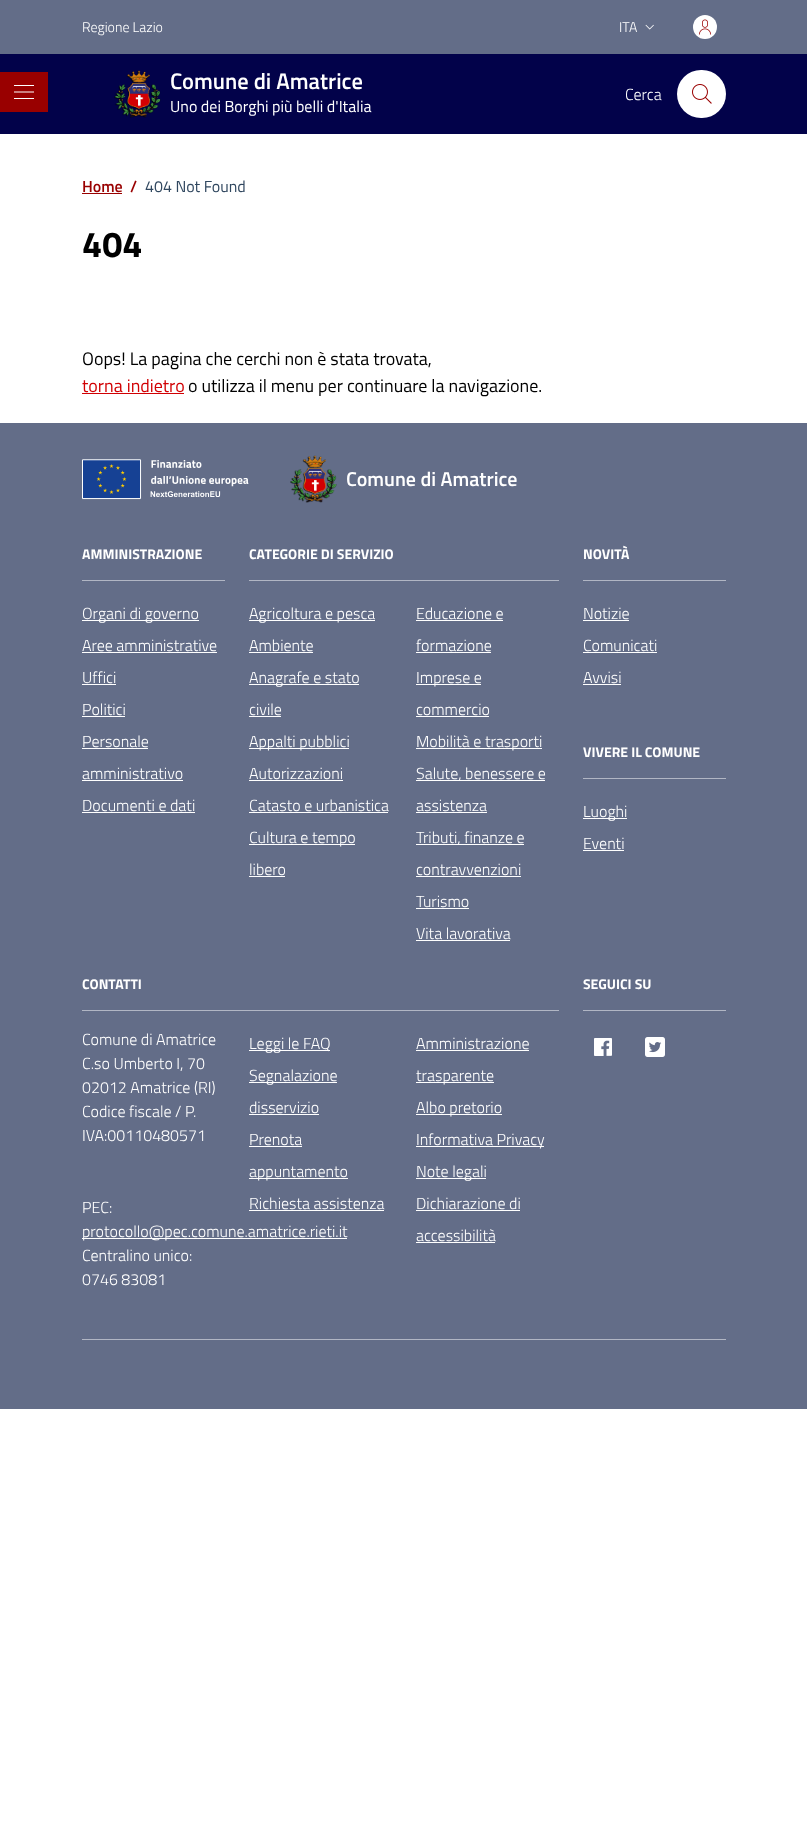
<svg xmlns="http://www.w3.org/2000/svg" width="807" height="1823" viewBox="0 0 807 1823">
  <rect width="100%" height="100%" fill="#fff"/>
  <path d="M0 0h807v54H0z" fill="#636d88"/>
  <image x="645" y="24" width="9" height="6" href="img/1.png"/>
  <circle cx="705" cy="27" r="12" fill="#fff"/>
  <image x="699" y="19" width="12" height="16" href="img/2.png"/>
  <path d="M0 54h807v80H0z" fill="#02024a"/>
  <path d="M0 72h48v40H0z" fill="#900"/>
  <image x="14" y="85" width="20" height="14" href="img/3.png"/>
  <image x="114" y="70" width="47" height="48" href="img/4.png"/>
  <rect x="677" y="70" width="49" height="48" rx="24" fill="#fff"/>
  <image x="692" y="84" width="20" height="20" href="img/5.png"/>
  <path d="M82 193h40v1H82z" fill="#900"/>
  <path d="M82 393h102v1H82z" fill="#d10003"/>
  <path d="M0 423h807v986H0z" fill="#636d88"/>
  <image x="82" y="459" width="167" height="41" href="img/6.png"/>
  <image x="290" y="455" width="47" height="48" href="img/7.png"/>
  <path d="M82 580h143v1H82z" fill="#b1b6c4"/>
  <path d="M82 620h117v1H82z" fill="#fff"/>
  <path d="M82 652h135v1H82z" fill="#fff"/>
  <path d="M82 684h34v1H82z" fill="#fff"/>
  <path d="M82 716h43v1H82z" fill="#fff"/>
  <path d="M82 748h66v1H82z" fill="#fff"/>
  <path d="M82 780h101v1H82z" fill="#fff"/>
  <path d="M82 812h113v1H82z" fill="#fff"/>
  <path d="M249 580h310v1H249z" fill="#b1b6c4"/>
  <path d="M249 620h126v1H249z" fill="#fff"/>
  <path d="M249 652h64v1H249z" fill="#fff"/>
  <path d="M249 684h110v1H249z" fill="#fff"/>
  <path d="M249 716h32v1H249z" fill="#fff"/>
  <path d="M249 748h100v1H249z" fill="#fff"/>
  <path d="M249 780h94v1H249z" fill="#fff"/>
  <path d="M249 812h139v1H249z" fill="#fff"/>
  <path d="M249 844h106v1H249z" fill="#fff"/>
  <path d="M249 876h36v1H249z" fill="#fff"/>
  <path d="M416 620h87v1H416z" fill="#fff"/>
  <path d="M416 652h75v1H416z" fill="#fff"/>
  <path d="M416 684h65v1H416z" fill="#fff"/>
  <path d="M416 716h73v1H416z" fill="#fff"/>
  <path d="M416 748h126v1H416z" fill="#fff"/>
  <path d="M416 780h129v1H416z" fill="#fff"/>
  <path d="M416 812h71v1H416z" fill="#fff"/>
  <path d="M416 844h108v1H416z" fill="#fff"/>
  <path d="M416 876h105v1H416z" fill="#fff"/>
  <path d="M416 908h53v1H416z" fill="#fff"/>
  <path d="M416 940h94v1H416z" fill="#fff"/>
  <path d="M583 580h143v1H583z" fill="#b1b6c4"/>
  <path d="M583 620h46v1H583z" fill="#fff"/>
  <path d="M583 652h74v1H583z" fill="#fff"/>
  <path d="M583 684h38v1H583z" fill="#fff"/>
  <path d="M583 778h143v1H583z" fill="#b1b6c4"/>
  <path d="M583 818h44v1H583z" fill="#fff"/>
  <path d="M583 850h41v1H583z" fill="#fff"/>
  <path d="M82 1010h477v1H82z" fill="#b1b6c4"/>
  <path d="M82 1238h265v1H82z" fill="#fff"/>
  <path d="M249 1050h81v1H249z" fill="#fff"/>
  <path d="M249 1082h88v1H249z" fill="#fff"/>
  <path d="M249 1114h70v1H249z" fill="#fff"/>
  <path d="M249 1146h53v1H249z" fill="#fff"/>
  <path d="M249 1178h99v1H249z" fill="#fff"/>
  <path d="M249 1210h135v1H249z" fill="#fff"/>
  <path d="M416 1050h113v1H416z" fill="#fff"/>
  <path d="M416 1082h78v1H416z" fill="#fff"/>
  <path d="M416 1114h86v1H416z" fill="#fff"/>
  <path d="M416 1146h128v1H416z" fill="#fff"/>
  <path d="M416 1178h70v1H416z" fill="#fff"/>
  <path d="M416 1210h104v1H416z" fill="#fff"/>
  <path d="M416 1242h79v1H416z" fill="#fff"/>
  <path d="M583 1010h143v1H583z" fill="#b1b6c4"/>
  <image x="594" y="1038" width="18" height="18" href="img/8.png"/>
  <image x="645" y="1037" width="20" height="20" href="img/9.png"/>
  <path d="M82 1339h644v1H82z" fill="#b1b6c4"/>
  <g font-family="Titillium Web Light" font-size="14" font-weight="300" fill="#fff">
    <text x="82" y="32">Regione Lazio</text>
    <text x="619" y="32">ITA</text>
  </g>
  <text x="170" y="89" font-family="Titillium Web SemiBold" font-size="22.5" font-weight="600" fill="#fff">Comune di Amatrice</text>
  <text x="170" y="112" font-family="Titillium Web" font-size="16" fill="#fff">Uno dei Borghi più belli d'Italia</text>
  <text x="625" y="100" font-family="Titillium Web Light" font-size="16" font-weight="300" fill="#fff">Cerca</text>
  <g font-family="Titillium Web SemiBold" font-size="16" font-weight="600" fill="#900">
    <text x="82" y="192">Home</text>
    <text x="130" y="192">/</text>
  </g>
  <text x="145" y="192" font-family="Titillium Web" font-size="16" fill="#30475f">404 Not Found</text>
  <text x="82" y="257" font-family="Titillium Web" font-size="36" font-weight="bold" fill="#000">404</text>
  <text x="82" y="365" font-family="Titillium Web" font-size="18" fill="#000">Oops! La pagina che cerchi non è stata trovata,</text>
  <text x="82" y="392" font-family="Titillium Web" font-size="18" fill="#d10003">torna indietro</text>
  <text x="188" y="392" font-family="Titillium Web" font-size="18" fill="#000">o utilizza il menu per continuare la navigazione.</text>
  <text x="346" y="486" font-family="Titillium Web SemiBold" font-size="20" font-weight="600" fill="#fff">Comune di Amatrice</text>
  <text x="82" y="559" font-family="Titillium Web" font-size="14" font-weight="bold" fill="#fff">AMMINISTRAZIONE</text>
  <g font-family="Titillium Web Light" font-size="16" font-weight="300" fill="#fff">
    <text x="82" y="619">Organi di governo</text>
    <text x="82" y="651">Aree amministrative</text>
    <text x="82" y="683">Uffici</text>
    <text x="82" y="715">Politici</text>
    <text x="82" y="747">Personale</text>
    <text x="82" y="779">amministrativo</text>
    <text x="82" y="811">Documenti e dati</text>
  </g>
  <text x="249" y="559" font-family="Titillium Web" font-size="14" font-weight="bold" fill="#fff">CATEGORIE DI SERVIZIO</text>
  <g font-family="Titillium Web Light" font-size="16" font-weight="300" fill="#fff">
    <text x="249" y="619">Agricoltura e pesca</text>
    <text x="249" y="651">Ambiente</text>
    <text x="249" y="683">Anagrafe e stato</text>
    <text x="249" y="715">civile</text>
    <text x="249" y="747">Appalti pubblici</text>
    <text x="249" y="779">Autorizzazioni</text>
    <text x="249" y="811">Catasto e urbanistica</text>
    <text x="249" y="843">Cultura e tempo</text>
    <text x="249" y="875">libero</text>
    <text x="416" y="619">Educazione e</text>
    <text x="416" y="651">formazione</text>
    <text x="416" y="683">Imprese e</text>
    <text x="416" y="715">commercio</text>
    <text x="416" y="747">Mobilità e trasporti</text>
    <text x="416" y="779">Salute, benessere e</text>
    <text x="416" y="811">assistenza</text>
    <text x="416" y="843">Tributi, finanze e</text>
    <text x="416" y="875">contravvenzioni</text>
    <text x="416" y="907">Turismo</text>
    <text x="416" y="939">Vita lavorativa</text>
  </g>
  <text x="583" y="559" font-family="Titillium Web" font-size="14" font-weight="bold" fill="#fff">NOVITÀ</text>
  <g font-family="Titillium Web Light" font-size="16" font-weight="300" fill="#fff">
    <text x="583" y="619">Notizie</text>
    <text x="583" y="651">Comunicati</text>
    <text x="583" y="683">Avvisi</text>
  </g>
  <text x="583" y="757" font-family="Titillium Web" font-size="14" font-weight="bold" fill="#fff">VIVERE IL COMUNE</text>
  <g font-family="Titillium Web Light" font-size="16" font-weight="300" fill="#fff">
    <text x="583" y="817">Luoghi</text>
    <text x="583" y="849">Eventi</text>
  </g>
  <text x="82" y="989" font-family="Titillium Web" font-size="14" font-weight="bold" fill="#fff">CONTATTI</text>
  <g font-family="Titillium Web Light" font-size="16" font-weight="300" fill="#fff">
    <text x="82" y="1045">Comune di Amatrice</text>
    <text x="82" y="1069">C.so Umberto I, 70</text>
    <text x="82" y="1093">02012 Amatrice (RI)</text>
    <text x="82" y="1117">Codice fiscale / P.</text>
    <text x="82" y="1141">IVA:00110480571</text>
    <text x="82" y="1213">PEC:</text>
    <text x="82" y="1237">protocollo@pec.comune.amatrice.rieti.it</text>
    <text x="82" y="1261">Centralino unico:</text>
    <text x="82" y="1285">0746 83081</text>
    <text x="249" y="1049">Leggi le FAQ</text>
    <text x="249" y="1081">Segnalazione</text>
    <text x="249" y="1113">disservizio</text>
    <text x="249" y="1145">Prenota</text>
    <text x="249" y="1177">appuntamento</text>
    <text x="249" y="1209">Richiesta assistenza</text>
    <text x="416" y="1049">Amministrazione</text>
    <text x="416" y="1081">trasparente</text>
    <text x="416" y="1113">Albo pretorio</text>
    <text x="416" y="1145">Informativa Privacy</text>
    <text x="416" y="1177">Note legali</text>
    <text x="416" y="1209">Dichiarazione di</text>
    <text x="416" y="1241">accessibilità</text>
  </g>
  <text x="583" y="989" font-family="Titillium Web" font-size="14" font-weight="bold" fill="#fff">SEGUICI SU</text>
</svg>
